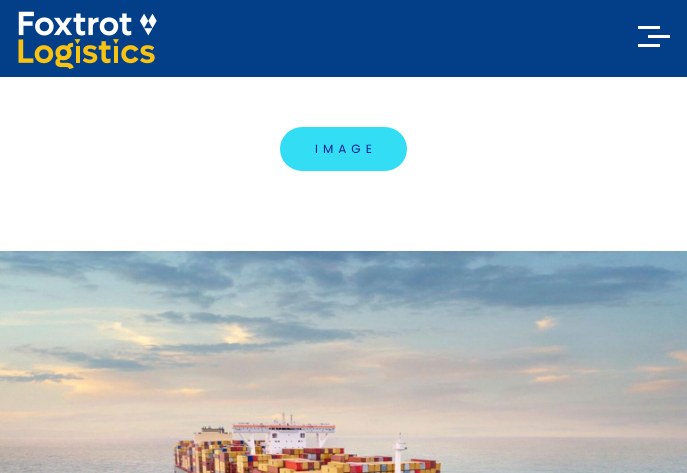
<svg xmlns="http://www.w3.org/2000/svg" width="687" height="473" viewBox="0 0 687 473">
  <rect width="100%" height="100%" fill="#fff"/>
  <path d="M0 0h687v77H0z" fill="#023f88"/>
  <image x="18" y="11" width="139" height="58" href="img/1.png"/>
  <path d="M638 26h22v3H638z" fill="#fff"/>
  <path d="M648 35h22v3H648z" fill="#fff"/>
  <path d="M638 44h22v3H638z" fill="#fff"/>
  <rect x="280" y="127" width="127" height="44" rx="22" fill="#33def4"/>
  <image x="0" y="251" width="687" height="222" href="img/2.png"/>
  <text x="315" y="153" font-family="Poppins" font-size="12" letter-spacing="5" fill="#0e2293">IMAGE</text>
</svg>
